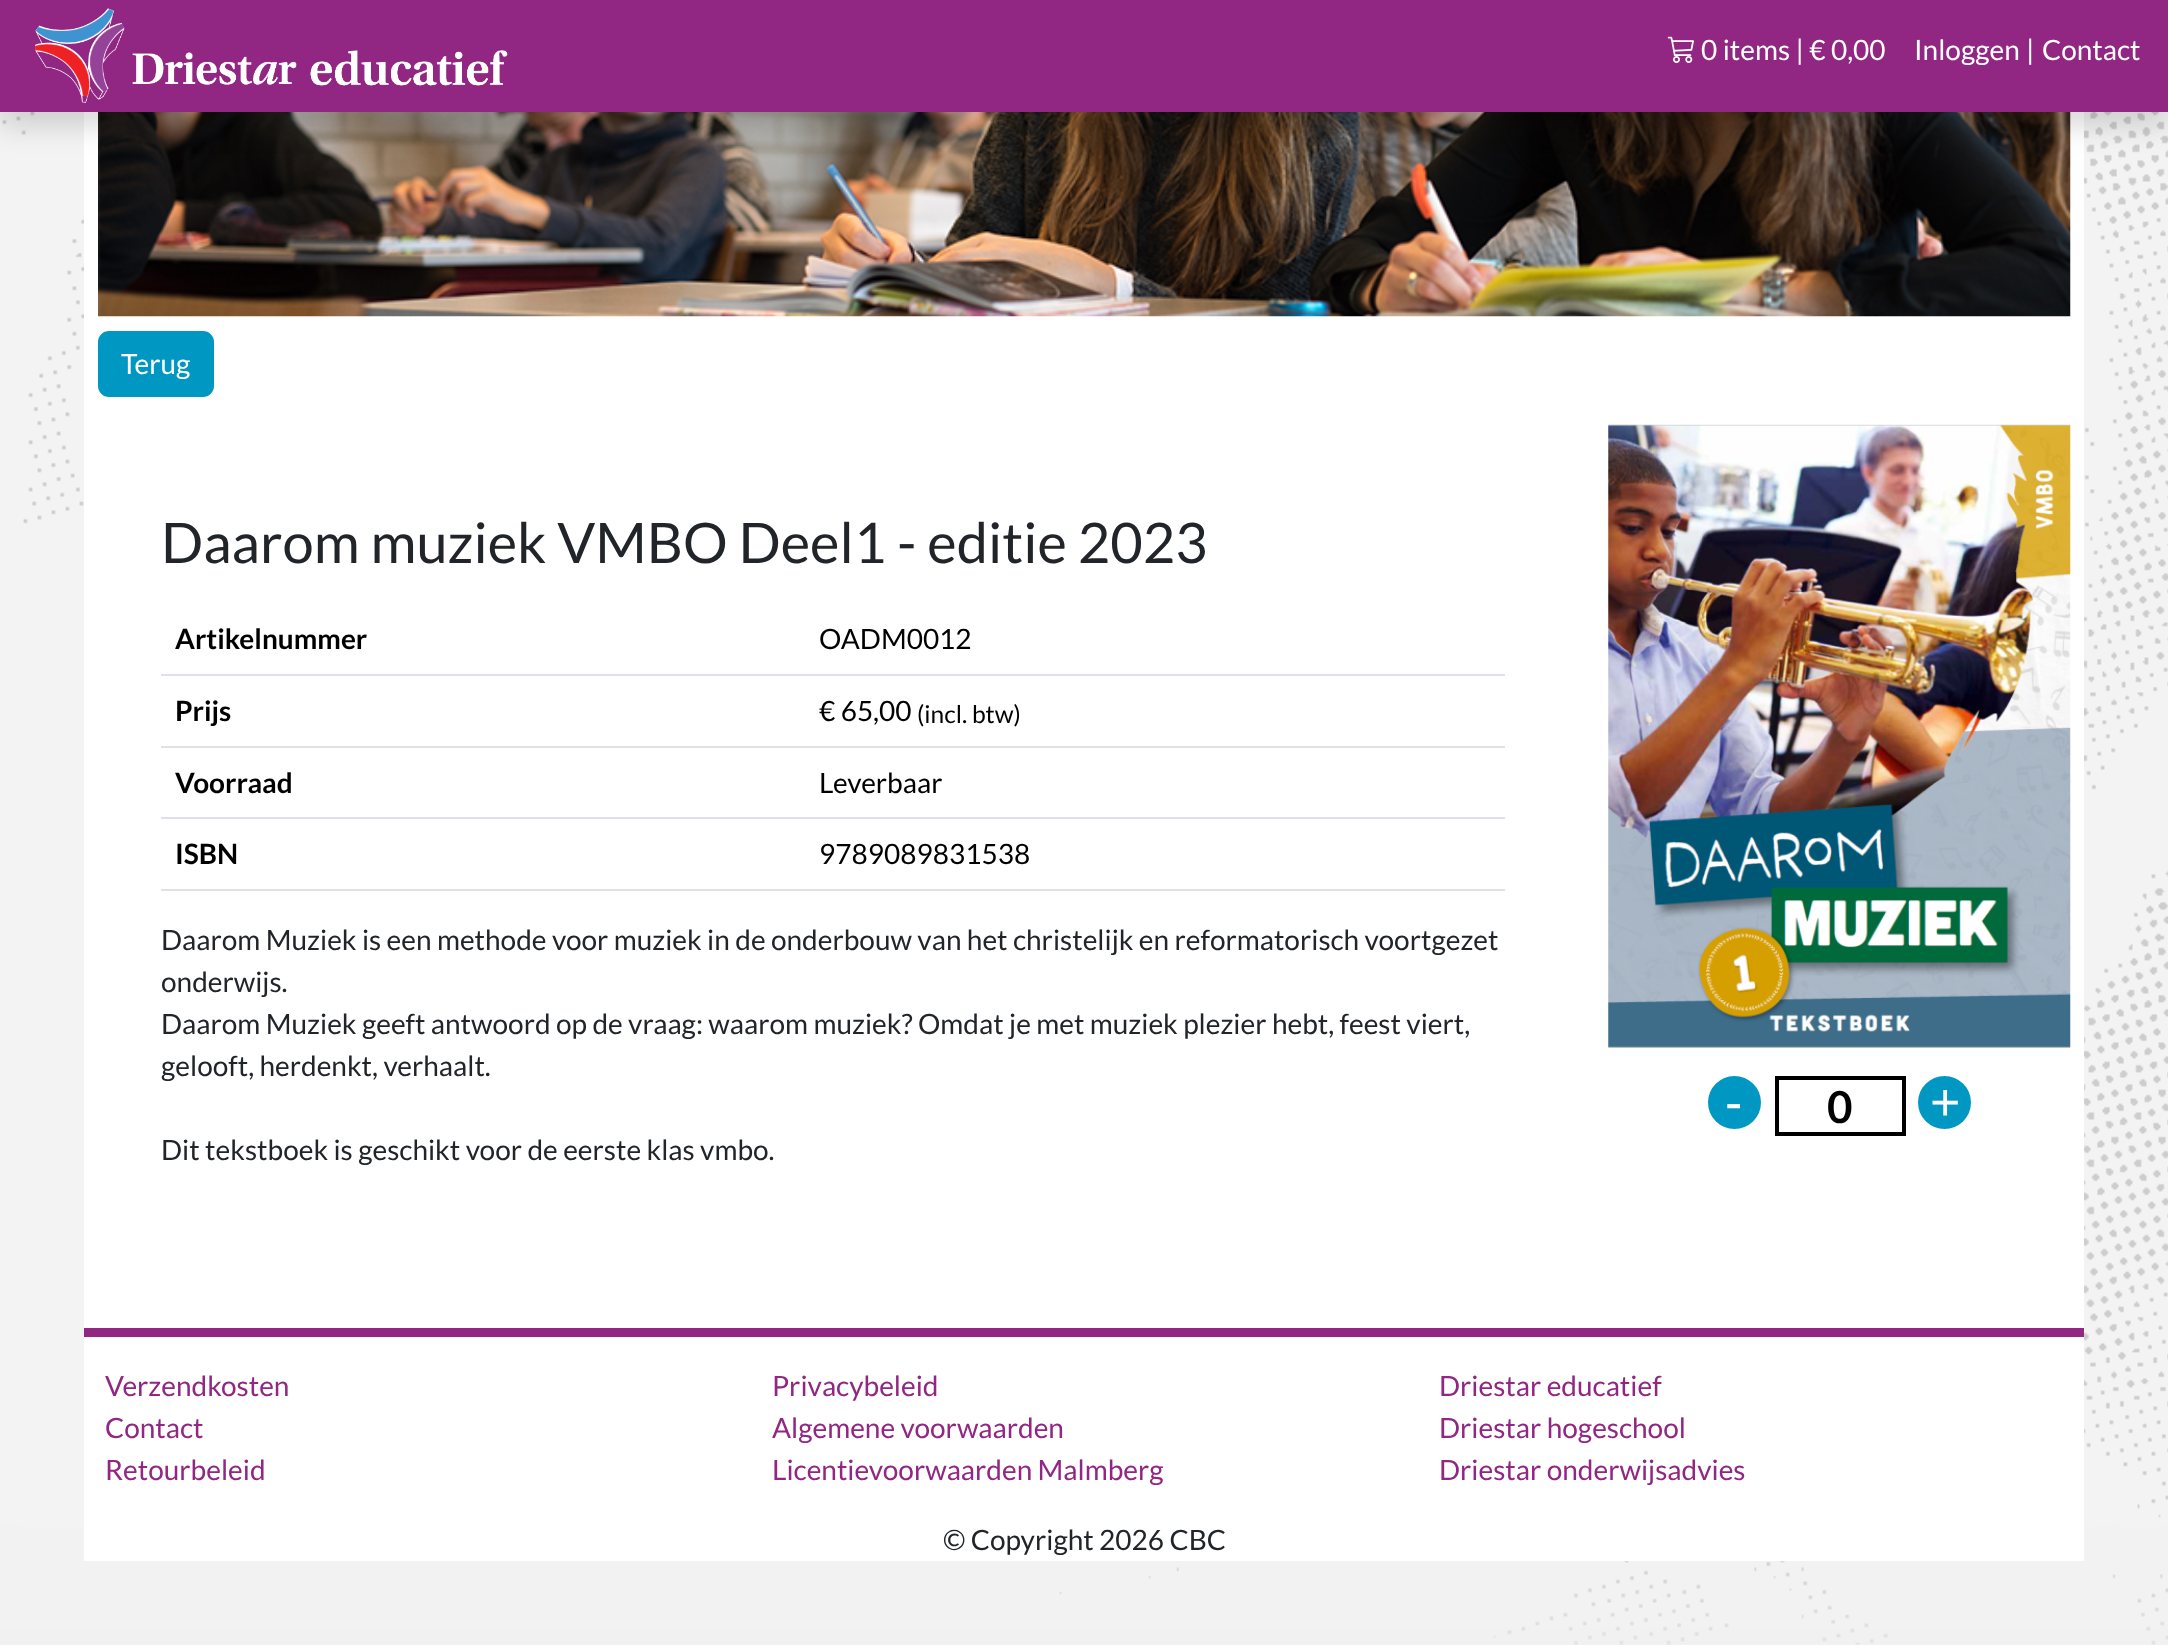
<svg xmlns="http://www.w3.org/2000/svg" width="2168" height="1645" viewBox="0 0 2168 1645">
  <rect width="100%" height="100%" fill="#f1f1f1"/>
  <image x="0" y="112" width="2168" height="1533" href="img/1.png"/>
  <path d="M84 112h2000v1216H84z" fill="#fff"/>
  <image x="98" y="112" width="1973" height="205" href="img/4.png"/>
  <path d="M0 14h2168v112H0z" fill="#00000026" filter="blur(14px)"/>
  <path d="M0 0h2168v112H0z" fill="#912683"/>
  <image x="34" y="8" width="474" height="95" href="img/2.png"/>
  <image x="1667" y="36" width="27" height="27" href="img/3.png"/>
  <rect x="99" y="332" width="114" height="64" rx="10" fill="#0098c2" stroke="#0098c2" stroke-width="2"/>
  <path d="M161 674h1344v2H161z" fill="#dee2e6"/>
  <path d="M161 746h1344v2H161z" fill="#dee2e6"/>
  <path d="M161 817h1344v2H161z" fill="#dee2e6"/>
  <path d="M161 889h1344v2H161z" fill="#dee2e6"/>
  <image x="1608" y="424" width="463" height="624" href="img/5.png"/>
  <circle cx="1734.5" cy="1102.5" r="26.5" fill="#0098c2"/>
  <path d="M1777 1078h127v56H1777z" fill="none" stroke="#000" stroke-width="4"/>
  <circle cx="1944.5" cy="1102.5" r="26.5" fill="#0098c2"/>
  <path d="M84 1337h2000v224H84z" fill="#fff"/>
  <path d="M84 1328h2000v9H84z" fill="#912683"/>
  <g font-family="Lato" font-size="28" fill="#fff">
    <text x="1701" y="60">0 items | € 0,00</text>
    <text x="1914" y="60">Inloggen</text>
    <text x="2026" y="60">|</text>
    <text x="2042" y="60">Contact</text>
    <text x="121" y="374">Terug</text>
  </g>
  <text x="161" y="563" font-family="Lato" font-size="56" fill="#212529">Daarom muziek VMBO Deel1 - editie 2023</text>
  <text x="175" y="649" font-family="Lato" font-size="28" font-weight="bold" fill="#000">Artikelnummer</text>
  <text x="819" y="649" font-family="Lato" font-size="28" fill="#000">OADM0012</text>
  <text x="175" y="721" font-family="Lato" font-size="28" font-weight="bold" fill="#000">Prijs</text>
  <text x="819" y="721" font-family="Lato" font-size="28" fill="#000">€ 65,00</text>
  <text x="917" y="723" font-family="Lato" font-size="24.5" fill="#000">(incl. btw)</text>
  <text x="175" y="793" font-family="Lato" font-size="28" font-weight="bold" fill="#000">Voorraad</text>
  <text x="819" y="793" font-family="Lato" font-size="28" fill="#000">Leverbaar</text>
  <text x="175" y="864" font-family="Lato" font-size="28" font-weight="bold" fill="#000">ISBN</text>
  <text x="819" y="864" font-family="Lato" font-size="28" fill="#000">9789089831538</text>
  <g font-family="Lato" font-size="28" fill="#212529">
    <text x="161" y="950">Daarom Muziek is een methode voor muziek in de onderbouw van het christelijk en reformatorisch voortgezet</text>
    <text x="161" y="992">onderwijs.</text>
    <text x="161" y="1034">Daarom Muziek geeft antwoord op de vraag: waarom muziek? Omdat je met muziek plezier hebt, feest viert,</text>
    <text x="161" y="1076">gelooft, herdenkt, verhaalt.</text>
    <text x="161" y="1160">Dit tekstboek is geschikt voor de eerste klas vmbo.</text>
  </g>
  <text x="1725" y="1120" font-family="Liberation Sans" font-size="52" fill="#fff">-</text>
  <text x="1827" y="1123" font-family="Lato" font-size="44" font-weight="bold" fill="#000">0</text>
  <text x="1930" y="1120" font-family="Liberation Sans" font-size="52" fill="#fff">+</text>
  <g font-family="Lato" font-size="28" fill="#912683">
    <text x="105" y="1396">Verzendkosten</text>
    <text x="105" y="1438">Contact</text>
    <text x="105" y="1480">Retourbeleid</text>
    <text x="772" y="1396">Privacybeleid</text>
    <text x="772" y="1438">Algemene voorwaarden</text>
    <text x="772" y="1480">Licentievoorwaarden Malmberg</text>
    <text x="1439" y="1396">Driestar educatief</text>
    <text x="1439" y="1438">Driestar hogeschool</text>
    <text x="1439" y="1480">Driestar onderwijsadvies</text>
  </g>
  <text x="943" y="1550" font-family="Lato" font-size="28" fill="#212529">© Copyright 2026 CBC</text>
</svg>
